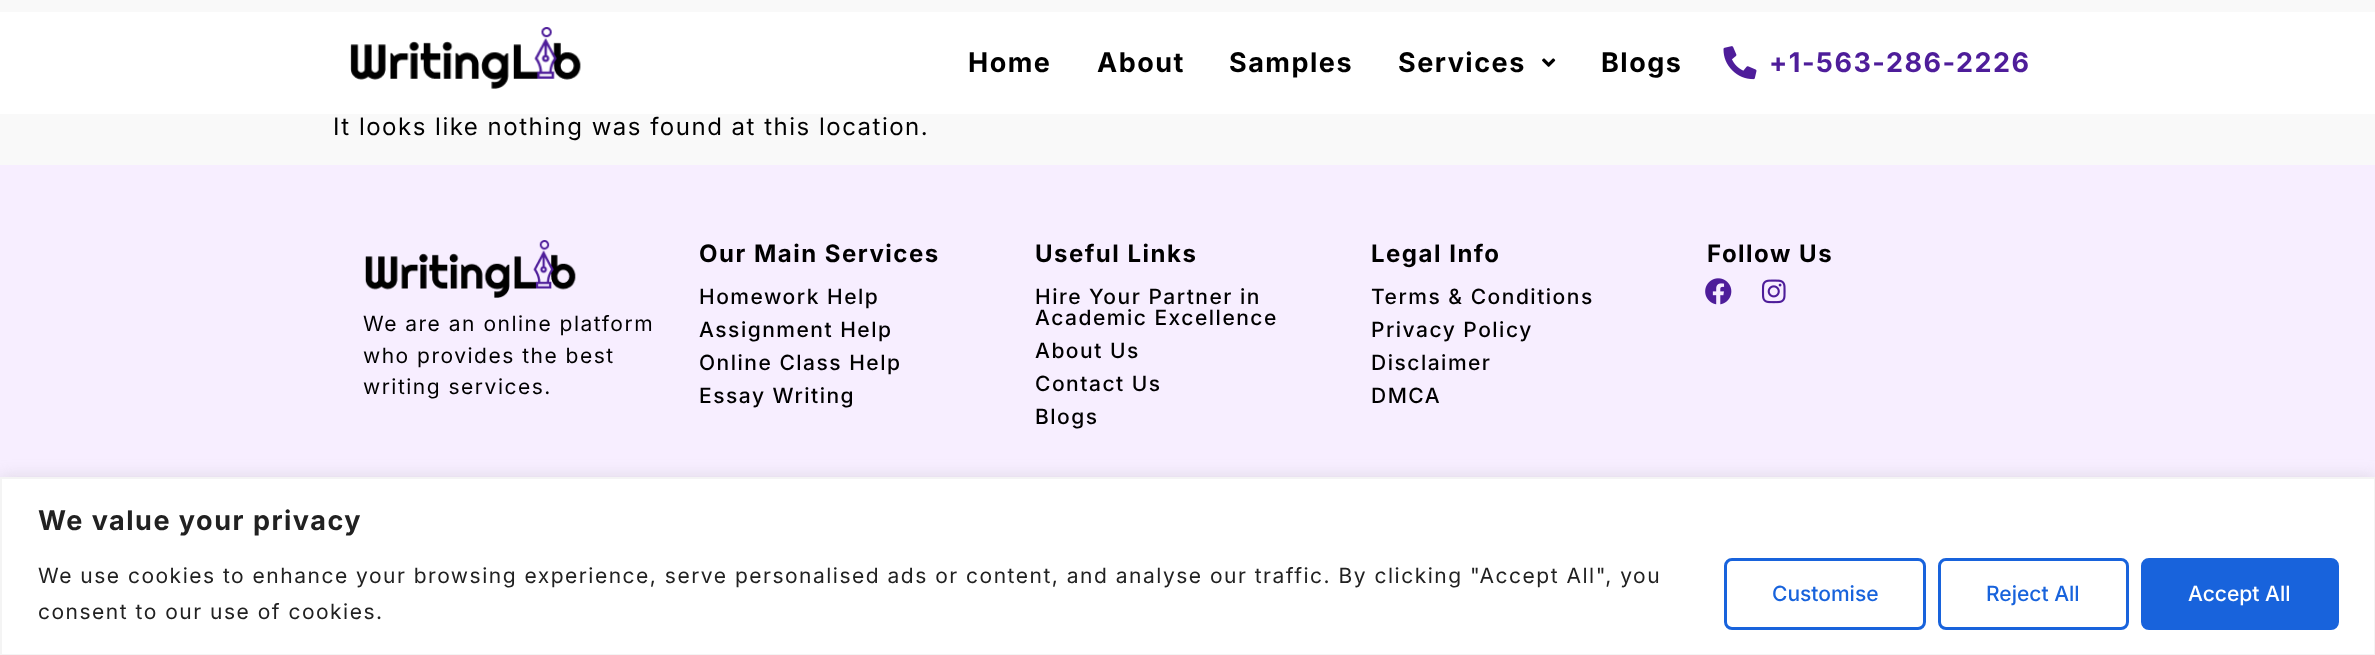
<svg xmlns="http://www.w3.org/2000/svg" width="2375" height="655" viewBox="0 0 2375 655">
  <rect width="100%" height="100%" fill="#f9f9f9"/>
  <path d="M0 12h2375v102H0z" fill="#fff"/>
  <image x="350" y="27" width="231" height="62" href="img/1.png"/>
  <image x="1542" y="58" width="14" height="9" href="img/2.png"/>
  <image x="1723" y="46" width="34" height="34" href="img/3.png"/>
  <path d="M0 165h2375v312H0z" fill="#f7eeff"/>
  <image x="1705" y="278" width="27" height="27" href="img/4.png"/>
  <image x="1761" y="279" width="25" height="25" href="img/5.png"/>
  <image x="365" y="240" width="211" height="58" href="img/6.png"/>
  <path d="M0 476h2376v178H0z" fill="#acabab4d" filter="blur(7.5px)"/>
  <path d="M1 478h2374v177H1z" fill="#fff" stroke="#f4f4f4" stroke-width="2"/>
  <rect x="1725.5" y="559.5" width="199" height="69" rx="6.5" fill="none" stroke="#1863dc" stroke-width="3"/>
  <rect x="1939.5" y="559.5" width="188" height="69" rx="6.5" fill="none" stroke="#1863dc" stroke-width="3"/>
  <rect x="2142.5" y="559.5" width="195" height="69" rx="6.5" fill="#1863dc" stroke="#1863dc" stroke-width="3"/>
  <g font-family="Inter" font-size="27" font-weight="bold" letter-spacing="1.5" fill="#000">
    <text x="968" y="72">Home</text>
    <text x="1097" y="72">About</text>
    <text x="1229" y="72">Samples</text>
    <text x="1398" y="72">Services</text>
    <text x="1601" y="72">Blogs</text>
  </g>
  <text x="1769" y="72" font-family="Inter" font-size="27" font-weight="bold" letter-spacing="1.5" fill="#4e1d9a">+1-563-286-2226</text>
  <text x="333" y="135" font-family="Inter" font-size="24" letter-spacing="1.5" fill="#000">It looks like nothing was found at this location.</text>
  <text x="699" y="262" font-family="Inter" font-size="24" font-weight="bold" letter-spacing="1.5" fill="#000">Our Main Services</text>
  <g font-family="Inter" font-size="21" font-weight="500" letter-spacing="1.5" fill="#000">
    <text x="699" y="304">Homework Help</text>
    <text x="699" y="337">Assignment Help</text>
    <text x="699" y="370">Online Class Help</text>
    <text x="699" y="403">Essay Writing</text>
  </g>
  <text x="1035" y="262" font-family="Inter" font-size="24" font-weight="bold" letter-spacing="1.5" fill="#000">Useful Links</text>
  <g font-family="Inter" font-size="21" font-weight="500" letter-spacing="1.5" fill="#000">
    <text x="1035" y="304">Hire Your Partner in</text>
    <text x="1035" y="325">Academic Excellence</text>
    <text x="1035" y="358">About Us</text>
    <text x="1035" y="391">Contact Us</text>
    <text x="1035" y="424">Blogs</text>
  </g>
  <text x="1371" y="262" font-family="Inter" font-size="24" font-weight="bold" letter-spacing="1.5" fill="#000">Legal Info</text>
  <g font-family="Inter" font-size="21" font-weight="500" letter-spacing="1.5" fill="#000">
    <text x="1371" y="304">Terms &amp; Conditions</text>
    <text x="1371" y="337">Privacy Policy</text>
    <text x="1371" y="370">Disclaimer</text>
    <text x="1371" y="403">DMCA</text>
  </g>
  <text x="1707" y="262" font-family="Inter" font-size="24" font-weight="bold" letter-spacing="1.5" fill="#000">Follow Us</text>
  <g font-family="Inter" font-size="21" letter-spacing="1.5" fill="#000">
    <text x="363" y="331">We are an online platform</text>
    <text x="363" y="363">who provides the best</text>
    <text x="363" y="394">writing services.</text>
  </g>
  <text x="38" y="530" font-family="Inter" font-size="27" font-weight="bold" letter-spacing="1.5" fill="#212121">We value your privacy</text>
  <g font-family="Inter" font-size="21" letter-spacing="1.5" fill="#212121">
    <text x="38" y="583">We use cookies to enhance your browsing experience, serve personalised ads or content, and analyse our traffic. By clicking "Accept All", you</text>
    <text x="38" y="619">consent to our use of cookies.</text>
  </g>
  <g font-family="Inter" font-size="21" font-weight="500" fill="#1863dc">
    <text x="1772" y="601">Customise</text>
    <text x="1986" y="601">Reject All</text>
  </g>
  <text x="2188" y="601" font-family="Inter" font-size="21" font-weight="500" fill="#fff">Accept All</text>
</svg>
